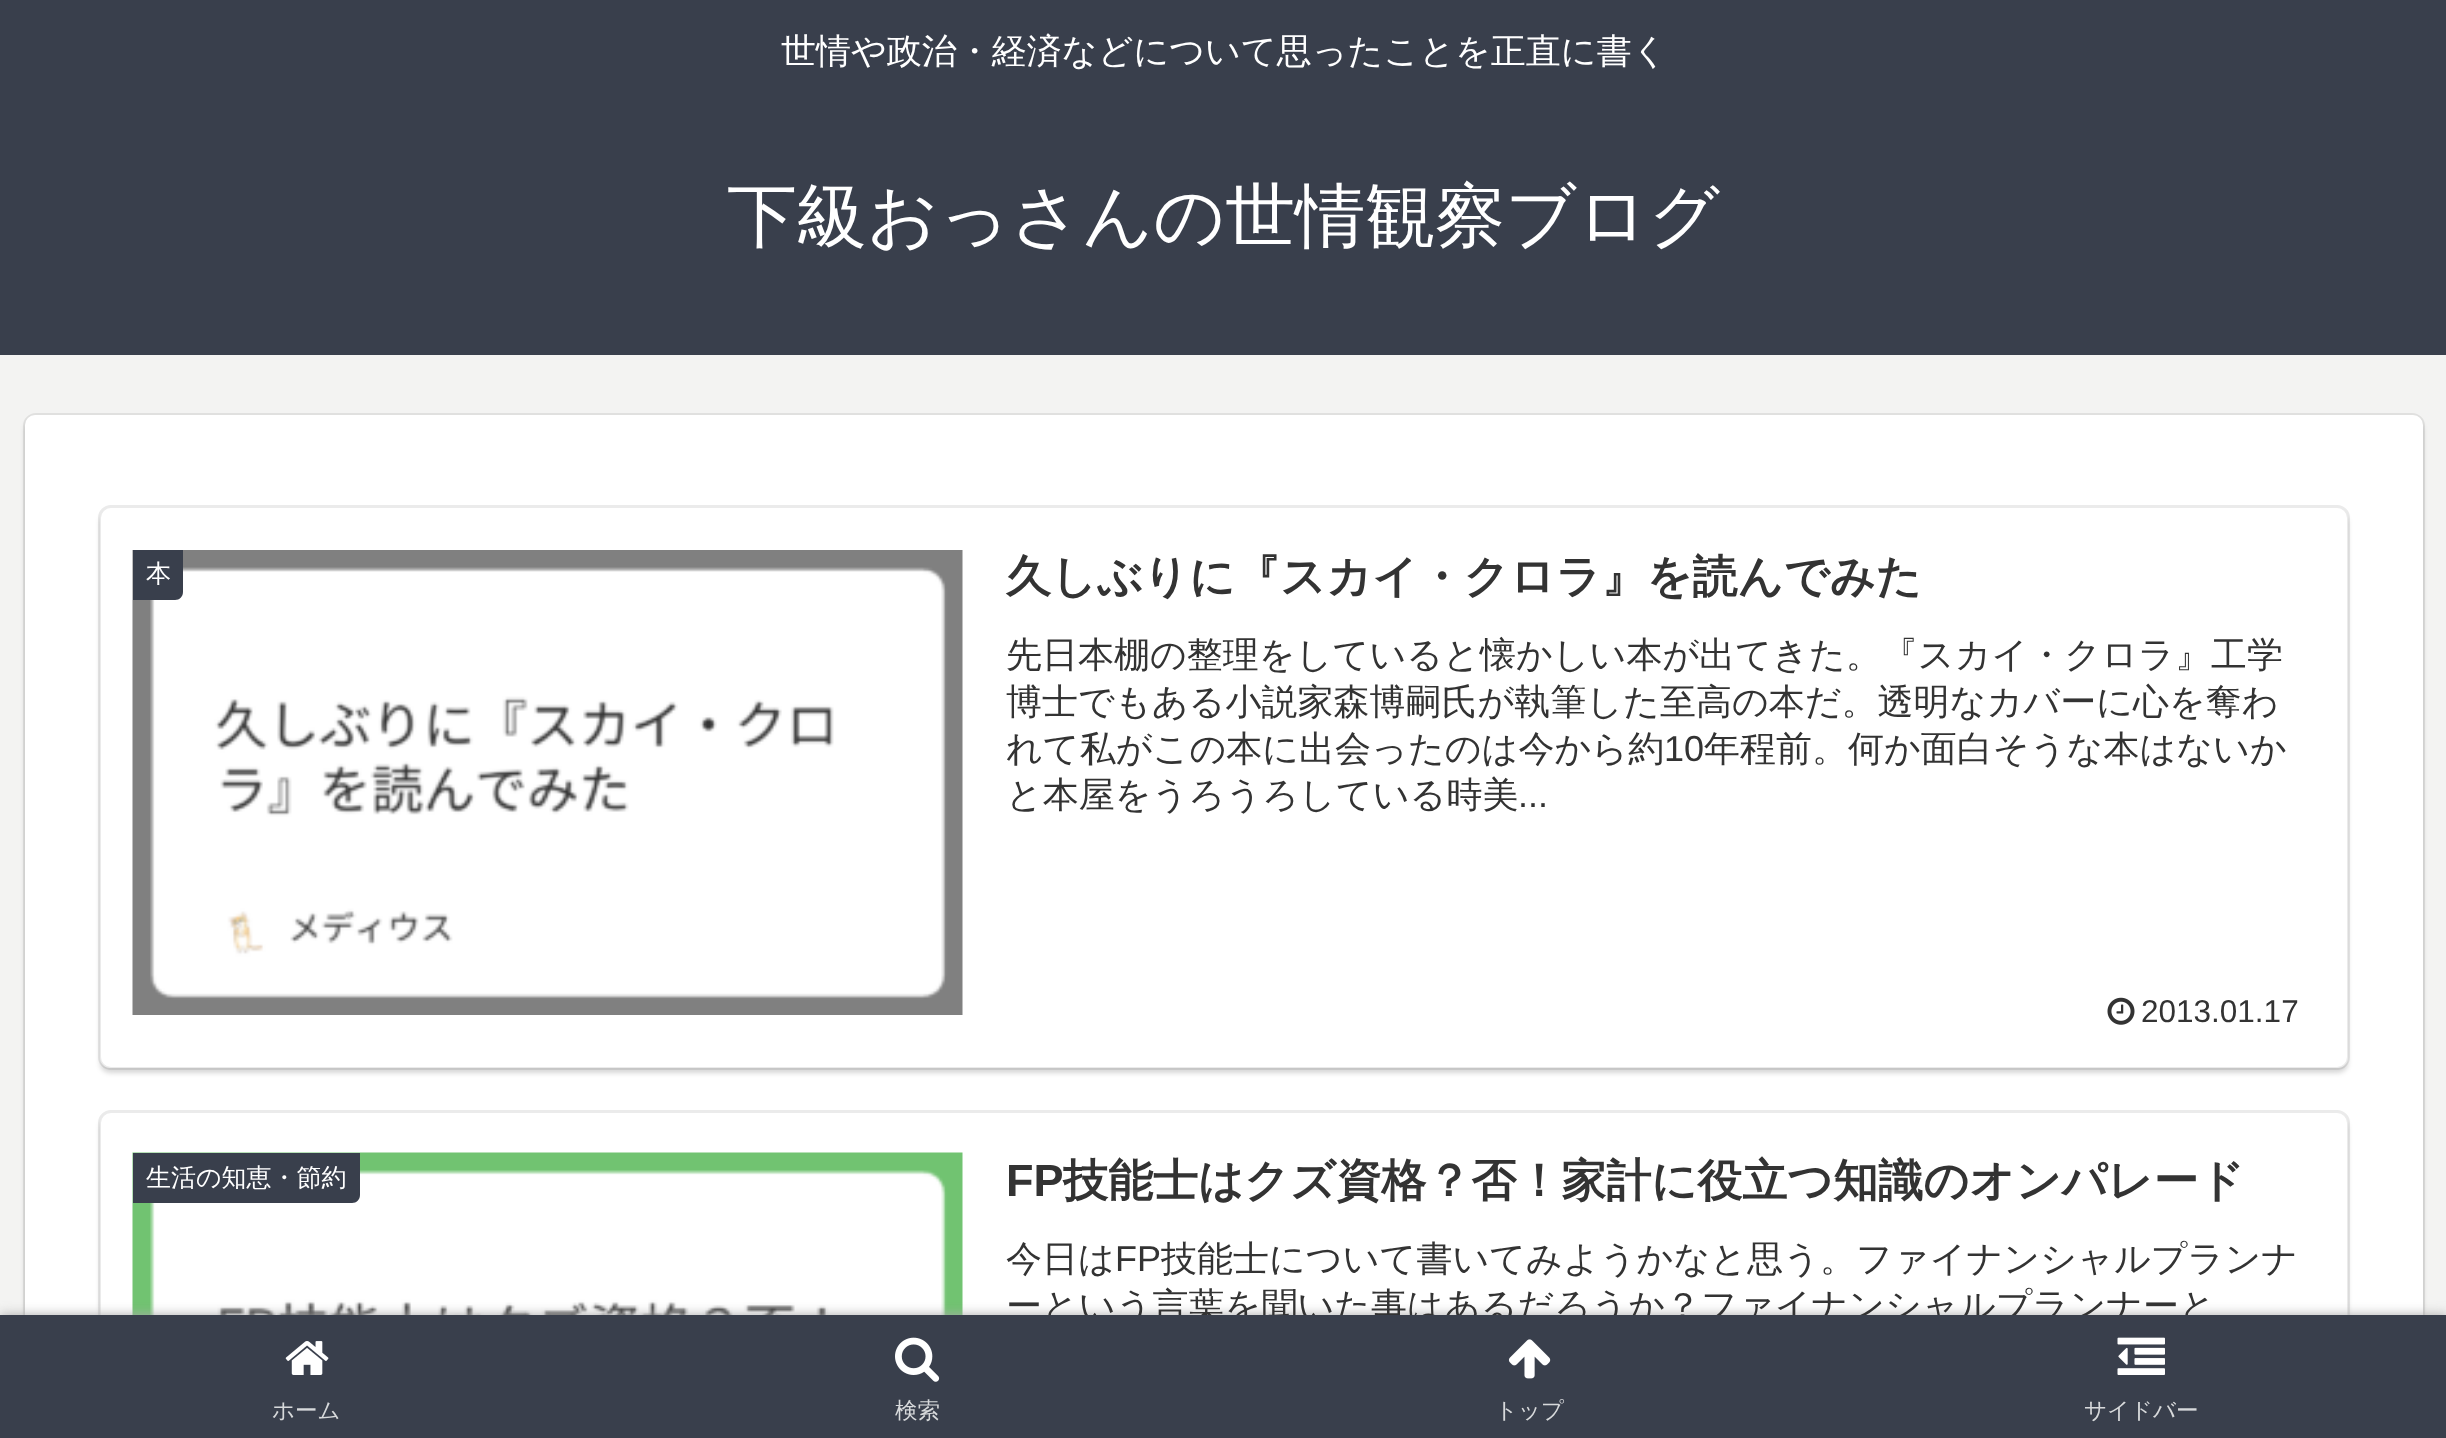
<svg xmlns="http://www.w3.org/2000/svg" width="2446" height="1438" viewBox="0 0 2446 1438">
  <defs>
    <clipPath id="clip1"><path d="M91 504H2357V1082H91ZM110 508H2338C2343.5 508 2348 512.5 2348 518V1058C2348 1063.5 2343.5 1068 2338 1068H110C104.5 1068 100 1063.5 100 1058V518C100 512.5 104.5 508 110 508Z" clip-rule="evenodd"/></clipPath>
    <clipPath id="clip2"><path d="M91 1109H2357V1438H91ZM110 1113H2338C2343.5 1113 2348 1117.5 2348 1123V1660C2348 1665.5 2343.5 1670 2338 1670H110C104.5 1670 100 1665.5 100 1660V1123C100 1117.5 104.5 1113 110 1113Z" clip-rule="evenodd"/></clipPath>
  </defs>
  <rect width="100%" height="100%" fill="#f3f3f2"/>
  <path d="M0 0h2446v355H0z" fill="#393f4c"/>
  <rect x="24.5" y="414.5" width="2399" height="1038" rx="11.5" fill="none" stroke="#e0e0df" stroke-width="3"/>
  <rect x="25" y="420" width="2398" height="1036" rx="10" fill="#00000029" filter="blur(2.5px)"/>
  <rect x="25" y="415" width="2398" height="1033" rx="10" fill="#fff"/>
  <rect x="99.5" y="506.5" width="2249" height="562" rx="11.5" fill="none" stroke="#ebebeb" stroke-width="3"/>
  <g clip-path="url(#clip1)">
    <rect x="100" y="513" width="2248" height="560" rx="10" fill="#00000029" filter="blur(2.5px)"/>
  </g>
  <image x="132" y="550" width="831" height="465" href="img/1.png"/>
  <path d="M133 550H183V592C183 596.5 179.5 600 175 600H133Z" fill="#393f4c"/>
  <image x="2107" y="997" width="28" height="28" href="img/2.png"/>
  <rect x="99.5" y="1111.5" width="2249" height="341" rx="11.5" fill="none" stroke="#ebebeb" stroke-width="3"/>
  <g clip-path="url(#clip2)">
    <rect x="100" y="1118" width="2248" height="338" rx="10" fill="#00000029" filter="blur(2.5px)"/>
  </g>
  <image x="132" y="1152" width="831" height="163" href="img/3.png"/>
  <path d="M133 1153H360V1195C360 1199.5 356.5 1203 352 1203H133Z" fill="#393f4c"/>
  <path d="M0 1315h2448v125H0z" fill="#a9a9a9" filter="blur(6px)"/>
  <text x="781" y="63" font-family="WenQuanYi Zen Hei" font-size="35" font-weight="500" fill="#fff">世情や政治・経済などについて思ったことを正直に書く</text>
  <text x="727" y="240" font-family="WenQuanYi Zen Hei" font-size="70" font-weight="500" fill="#fff">下級おっさんの世情観察ブログ</text>
  <text x="146" y="582" font-family="WenQuanYi Zen Hei" font-size="25" font-weight="500" fill="#fff">本</text>
  <text x="1006" y="592" font-family="WenQuanYi Zen Hei" font-size="45" font-weight="bold" fill="#333">久しぶりに『スカイ・クロラ』を読んでみた</text>
  <g font-family="WenQuanYi Zen Hei" font-size="36" font-weight="500" fill="#333">
    <text x="1006" y="667">先日本棚の整理をしていると懐かしい本が出てきた。『スカイ・クロラ』工学</text>
    <text x="1006" y="714">博士でもある小説家森博嗣氏が執筆した至高の本だ。透明なカバーに心を奪わ</text>
    <text x="1006" y="761">れて私がこの本に出会ったのは今から約</text>
  </g>
  <text x="1664" y="761" font-family="Liberation Sans" font-size="36" fill="#333">10</text>
  <g font-family="WenQuanYi Zen Hei" font-size="36" font-weight="500" fill="#333">
    <text x="1704" y="761">年程前。何か面白そうな本はないか</text>
    <text x="1006" y="807">と本屋をうろうろしている時美</text>
  </g>
  <text x="1518" y="807" font-family="Liberation Sans" font-size="36" fill="#333">...</text>
  <text x="2141" y="1022" font-family="Liberation Sans" font-size="31.5" fill="#333">2013.01.17</text>
  <text x="146" y="1186" font-family="WenQuanYi Zen Hei" font-size="25" font-weight="500" fill="#fff">生活の知恵・節約</text>
  <text x="1006" y="1196" font-family="Liberation Sans" font-size="45" font-weight="bold" fill="#333">FP</text>
  <text x="1063" y="1196" font-family="WenQuanYi Zen Hei" font-size="45" font-weight="bold" fill="#333">技能士はクズ資格？否！家計に役立つ知識のオンパレード</text>
  <text x="1006" y="1271" font-family="WenQuanYi Zen Hei" font-size="36" font-weight="500" fill="#333">今日は</text>
  <text x="1115" y="1271" font-family="Liberation Sans" font-size="36" fill="#333">FP</text>
  <g font-family="WenQuanYi Zen Hei" font-size="36" font-weight="500" fill="#333">
    <text x="1161" y="1271">技能士について書いてみようかなと思う。ファイナンシャルプランナ</text>
    <text x="1006" y="1318">ーという言葉を聞いた事はあるだろうか？ファイナンシャルプランナーと</text>
  </g>
  <path d="M0 1315h2446v123H0z" fill="#393f4c"/>
  <image x="285" y="1341" width="44" height="34" href="img/4.png"/>
  <text x="272" y="1418" font-family="WenQuanYi Zen Hei" font-size="22.5" font-weight="500" fill="#d7d9db">ホーム</text>
  <image x="895" y="1337" width="45" height="45" href="img/5.png"/>
  <text x="895" y="1418" font-family="WenQuanYi Zen Hei" font-size="22.5" font-weight="500" fill="#d7d9db">検索</text>
  <image x="1508" y="1339" width="43" height="40" href="img/6.png"/>
  <text x="1495" y="1418" font-family="WenQuanYi Zen Hei" font-size="22.5" font-weight="500" fill="#d7d9db">トップ</text>
  <image x="2117" y="1337" width="48" height="38" href="img/7.png"/>
  <text x="2084" y="1418" font-family="WenQuanYi Zen Hei" font-size="22.5" font-weight="500" fill="#d7d9db">サイドバー</text>
</svg>
